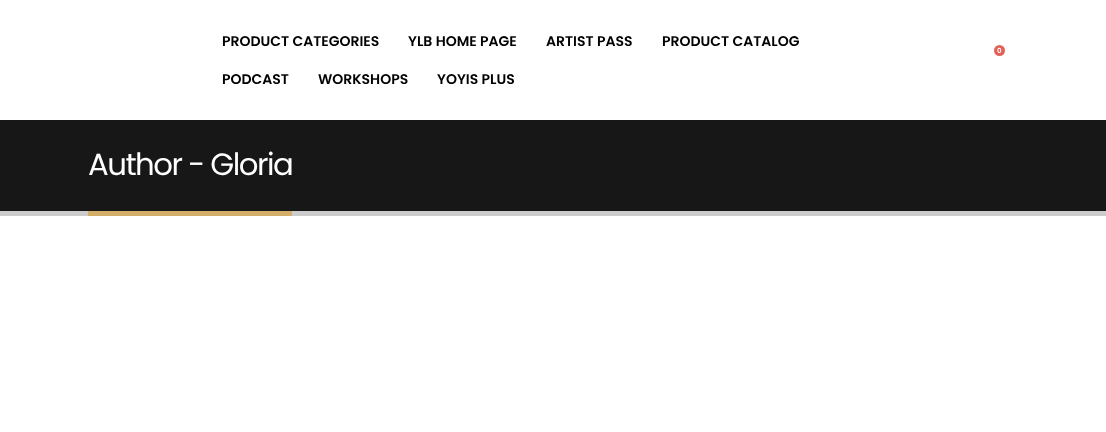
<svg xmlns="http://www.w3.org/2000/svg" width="1106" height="432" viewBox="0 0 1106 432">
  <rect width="100%" height="100%" fill="#fff"/>
  <circle cx="999.5" cy="50.5" r="5.5" fill="#e36159"/>
  <path d="M0 120h1106v91H0z" fill="#171717"/>
  <path d="M0 211h1106v5H0z" fill="#ccc"/>
  <path d="M88 211h204v5H88z" fill="#d2ae68"/>
  <g font-family="Poppins" font-size="14" font-weight="600" fill="#000">
    <text x="222" y="46">PRODUCT CATEGORIES</text>
    <text x="408" y="46">YLB HOME PAGE</text>
    <text x="546" y="46">ARTIST PASS</text>
    <text x="662" y="46">PRODUCT CATALOG</text>
    <text x="222" y="84">PODCAST</text>
    <text x="318" y="84">WORKSHOPS</text>
    <text x="437" y="84">YOYIS PLUS</text>
  </g>
  <text x="997" y="53" font-family="Poppins" font-size="7" font-weight="600" fill="#fff">0</text>
  <text x="88" y="175" font-family="Poppins" font-size="30.75" letter-spacing="-1.5" fill="#fff">Author - Gloria</text>
</svg>
